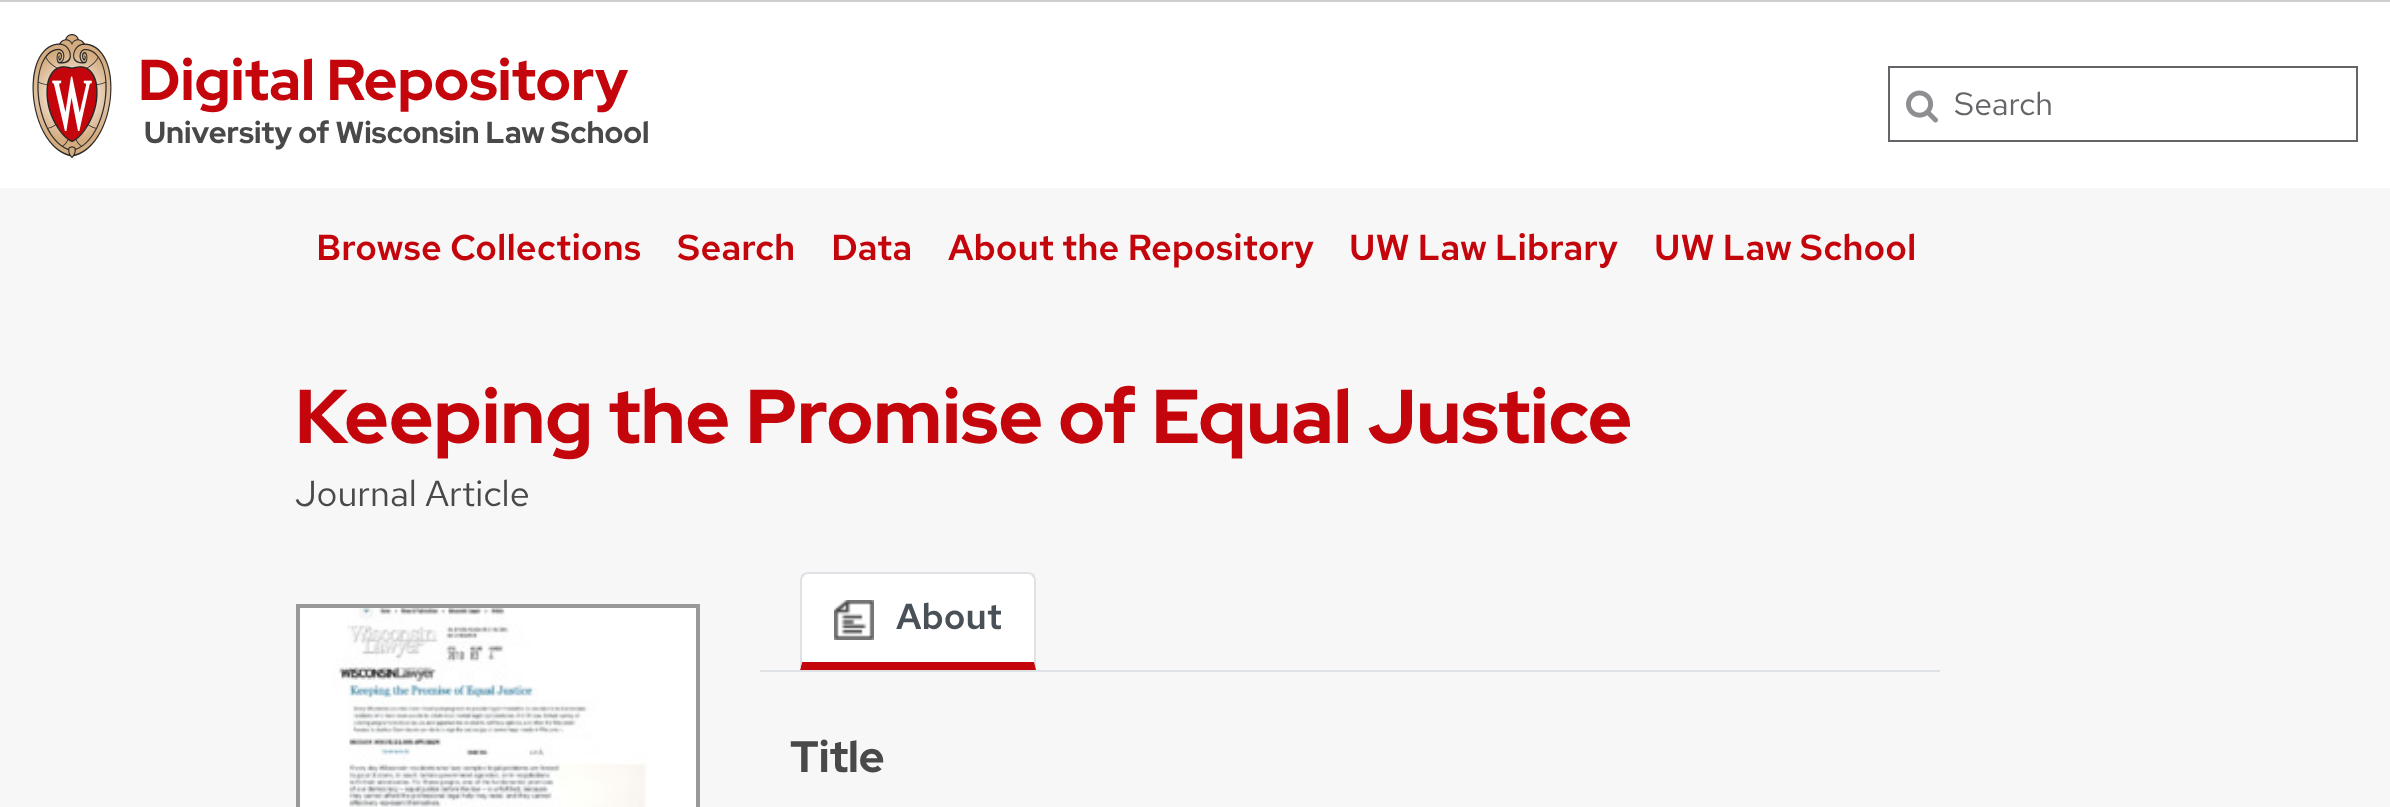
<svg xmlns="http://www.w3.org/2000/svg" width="2390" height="807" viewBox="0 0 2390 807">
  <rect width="100%" height="100%" fill="#f7f7f7"/>
  <path d="M0 0h2390v2H0z" fill="#cfcfcf"/>
  <path d="M0 2h2390v186H0z" fill="#fff"/>
  <image x="32" y="34" width="80" height="124" href="img/1.png"/>
  <image x="1906" y="90" width="32" height="33" href="img/2.png"/>
  <path d="M1889 67h468v74H1889z" fill="none" stroke="#646569" stroke-width="2"/>
  <path d="M300 608h396v199H300z" fill="#fff"/>
  <path d="M297 605h402v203H297z" fill="none" stroke="#999" stroke-width="2"/>
  <path d="M299 607h398v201H299z" fill="none" stroke="#999" stroke-width="2"/>
  <image x="332" y="608" width="316" height="199" href="img/3.png"/>
  <path d="M760 670h1180v2H760z" fill="#dee2e6"/>
  <path d="M808 574H1028C1031.5 574 1034 576.5 1034 580V662H802V580C802 576.5 804.5 574 808 574Z" fill="#fff"/>
  <path d="M808 572C806 572 804 573 802 574L804 576C805 575 806 574 808 574H1028C1030 574 1031 575 1032 576L1034 574C1032 573 1030 572 1028 572Z" fill="#dee2e6"/>
  <path d="M1036 670V580C1036 578 1035 576 1034 574L1032 576L1034 579V662Z" fill="#dee2e6"/>
  <path d="M1036 670L1034 662H802L800 670Z" fill="#c5050c"/>
  <path d="M800 670L802 662V579L804 576L802 574C801 576 800 578 800 580Z" fill="#dee2e6"/>
  <image x="834" y="600" width="40" height="40" href="img/4.png"/>
  <text x="138" y="100" font-family="Red Hat Display" font-size="57.5" font-weight="800" fill="#c5050c">Digital Repository</text>
  <text x="144" y="143" font-family="Red Hat Display" font-size="30.4" font-weight="bold" fill="#494949">University of Wisconsin Law School</text>
  <text x="1954" y="115" font-family="Red Hat Text" font-size="32" fill="#646569">Search</text>
  <g font-family="Red Hat Text" font-size="36" font-weight="600" fill="#c5050c">
    <text x="316" y="260">Browse Collections</text>
    <text x="677" y="260">Search</text>
    <text x="831" y="260">Data</text>
    <text x="948" y="260">About the Repository</text>
    <text x="1349" y="260">UW Law Library</text>
    <text x="1654" y="260">UW Law School</text>
  </g>
  <text x="295" y="443" font-family="Red Hat Display" font-size="76" font-weight="800" fill="#c5050c">Keeping the Promise of Equal Justice</text>
  <text x="295" y="506" font-family="Red Hat Text" font-size="36" fill="#494949">Journal Article</text>
  <text x="896" y="629" font-family="Red Hat Text" font-size="36" font-weight="600" fill="#495057">About</text>
  <text x="790" y="772" font-family="Red Hat Display" font-size="44" font-weight="800" fill="#494949">Title</text>
</svg>
